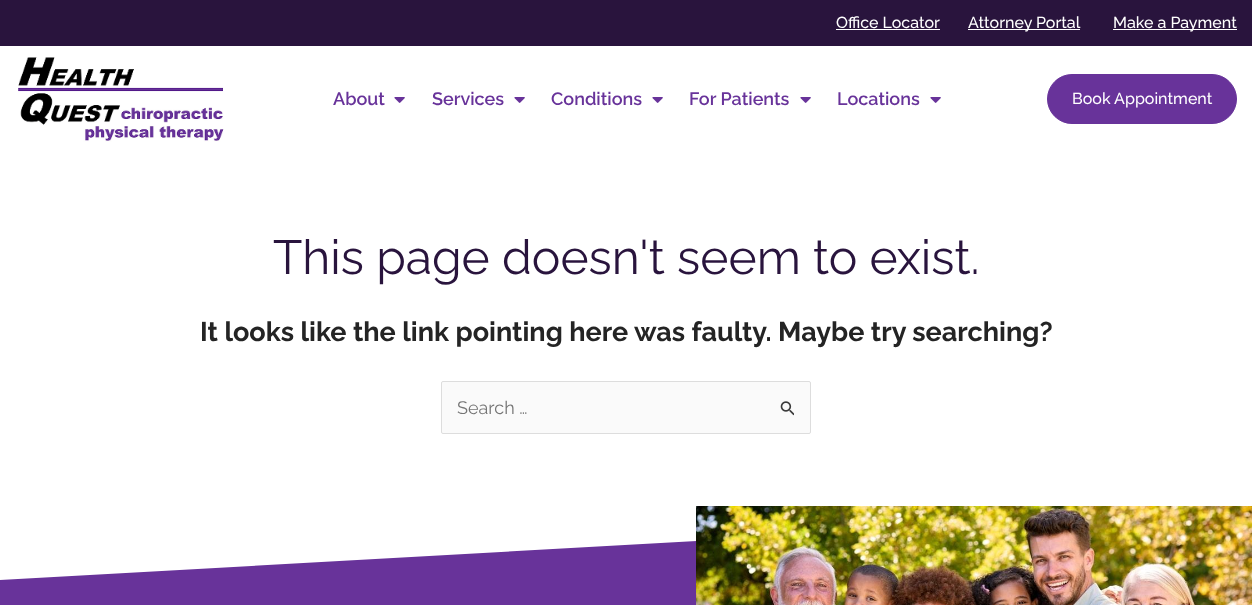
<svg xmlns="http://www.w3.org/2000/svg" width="1252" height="605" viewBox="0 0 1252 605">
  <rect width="100%" height="100%" fill="#fff"/>
  <path d="M0 0h1252v46H0z" fill="#29143d"/>
  <path d="M836 29h104v1H836z" fill="#fff"/>
  <path d="M968 29h112v1H968z" fill="#fff"/>
  <path d="M1113 29h124v1H1113z" fill="#fff"/>
  <image x="18" y="57" width="206" height="85" href="img/1.png"/>
  <image x="394" y="97" width="11" height="6" href="img/2.png"/>
  <image x="514" y="97" width="11" height="6" href="img/2.png"/>
  <image x="652" y="97" width="11" height="6" href="img/2.png"/>
  <image x="800" y="97" width="11" height="6" href="img/2.png"/>
  <image x="930" y="97" width="11" height="6" href="img/2.png"/>
  <rect x="1047.5" y="74.5" width="189" height="49" rx="24.5" fill="#68339a" stroke="#68339a"/>
  <rect x="441.5" y="381.5" width="369" height="52" rx="1.5" fill="#fafafa" stroke="#ddd"/>
  <image x="780" y="401" width="14" height="15" href="img/3.png"/>
  <path d="M0 541h696v64H0z" fill="#68339a"/>
  <path d="M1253 510V505H-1V580Z" fill="#fff"/>
  <image x="696" y="506" width="556" height="99" href="img/4.png"/>
  <g font-family="Raleway" font-size="16" font-weight="500" fill="#fff">
    <text x="836" y="28">Office Locator</text>
    <text x="968" y="28">Attorney Portal</text>
    <text x="1113" y="28">Make a Payment</text>
  </g>
  <g font-family="Raleway" font-size="18" font-weight="600" fill="#68339a">
    <text x="333" y="105">About</text>
    <text x="432" y="105">Services</text>
    <text x="551" y="105">Conditions</text>
    <text x="689" y="105">For Patients</text>
    <text x="837" y="105">Locations</text>
  </g>
  <text x="1072" y="104" font-family="Raleway" font-size="16" font-weight="500" fill="#fff">Book Appointment</text>
  <text x="273" y="274" font-family="Raleway" font-size="48" fill="#29143d">This page doesn't seem to exist.</text>
  <text x="200" y="341" font-family="Raleway" font-size="27" font-weight="bold" fill="#242424">It looks like the link pointing here was faulty. Maybe try searching?</text>
  <text x="457" y="414" font-family="Raleway" font-size="18" fill="#757575">Search …</text>
</svg>
